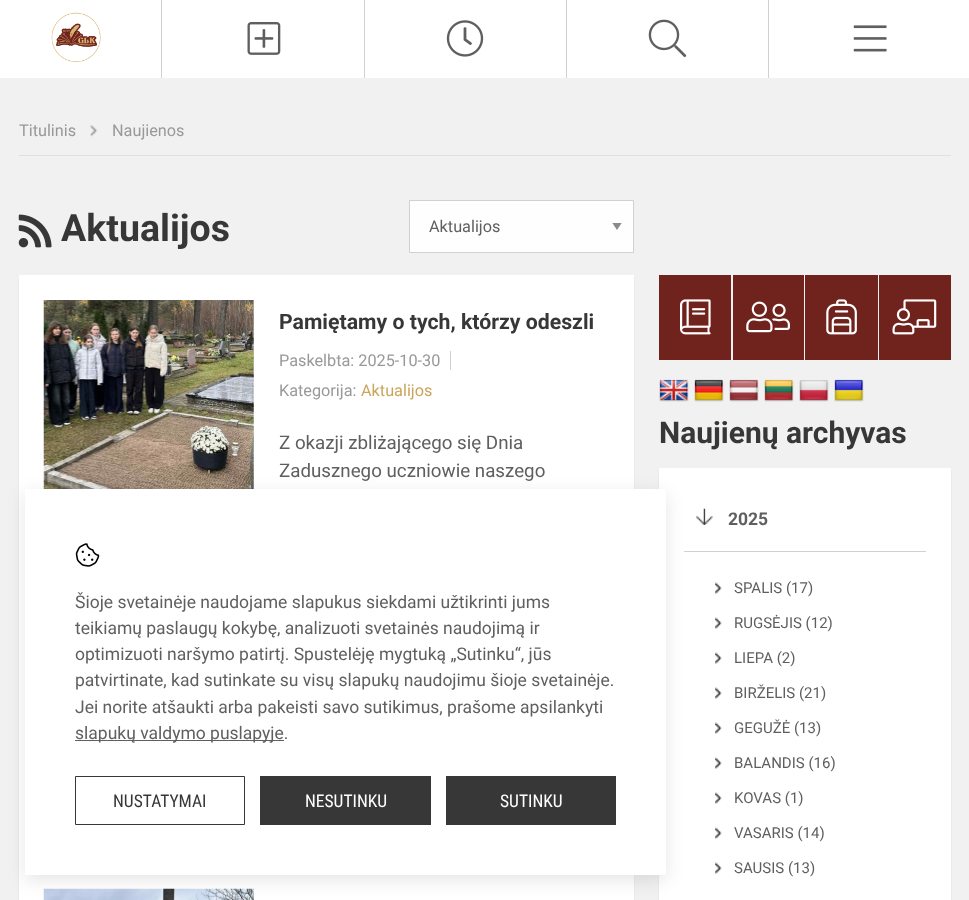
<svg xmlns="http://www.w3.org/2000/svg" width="969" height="900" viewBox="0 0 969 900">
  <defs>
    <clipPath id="clip1"><path d="M611 223h12v7H611z"/></clipPath>
  </defs>
  <rect width="100%" height="100%" fill="#fff"/>
  <image x="51" y="12" width="50" height="50" href="img/1.png"/>
  <path d="M161 0h1v78H161z" fill="#d1d1d1"/>
  <image x="247" y="22" width="34" height="33" href="img/2.png"/>
  <path d="M364 0h1v78H364z" fill="#d1d1d1"/>
  <image x="446" y="20" width="38" height="37" href="img/3.png"/>
  <path d="M566 0h1v78H566z" fill="#d1d1d1"/>
  <image x="648" y="19" width="39" height="39" href="img/4.png"/>
  <path d="M768 0h1v78H768z" fill="#d1d1d1"/>
  <image x="853" y="25" width="34" height="27" href="img/5.png"/>
  <path d="M0 78h969v822H0z" fill="#f1f1f1"/>
  <path d="M19 155h932v1H19z" fill="#e0e0e0"/>
  <image x="90" y="125" width="8" height="12" href="img/6.png"/>
  <image x="18" y="214" width="34" height="34" href="img/7.png"/>
  <path d="M410 201h223v51H410z" fill="#fefefe"/>
  <g clip-path="url(#clip1)">
    <path d="M612 222.5H622L617 230Z" fill="#8a8a8a"/>
  </g>
  <path d="M409.5 200.5h224v52H409.5z" fill="none" stroke="#d1d1d1"/>
  <path d="M19 278h615v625H19z" fill="#e0e0e0" filter="blur(1px)"/>
  <path d="M19 275h615v625H19z" fill="#fff"/>
  <image x="43" y="300" width="211" height="189" href="img/8.png"/>
  <path d="M450 351h1v19H450z" fill="#d1d1d1"/>
  <image x="43" y="888" width="211" height="12" href="img/9.png"/>
  <path d="M659 275h72v85H659z" fill="#70231d"/>
  <image x="680" y="299" width="31" height="36" href="img/10.png"/>
  <path d="M733 275h71v85H733z" fill="#70231d"/>
  <image x="746" y="301" width="44" height="32" href="img/11.png"/>
  <path d="M805 275h73v85H805z" fill="#70231d"/>
  <image x="826" y="299" width="31" height="36" href="img/12.png"/>
  <path d="M879 275h72v85H879z" fill="#70231d"/>
  <image x="892" y="299" width="45" height="36" href="img/13.png"/>
  <image x="659" y="379" width="30" height="23" href="img/14.png"/>
  <image x="694" y="379" width="30" height="23" href="img/15.png"/>
  <image x="729" y="379" width="30" height="23" href="img/16.png"/>
  <image x="764" y="379" width="30" height="23" href="img/17.png"/>
  <image x="799" y="380" width="30" height="22" href="img/18.png"/>
  <image x="834" y="379" width="30" height="23" href="img/19.png"/>
  <path d="M659 470h292v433H659z" fill="#e0e0e0" filter="blur(1px)"/>
  <path d="M659 468h292v432H659z" fill="#fff"/>
  <image x="696" y="508" width="17" height="17" href="img/20.png"/>
  <path d="M684 551h242v1H684z" fill="#d1d1d1"/>
  <image x="715" y="582" width="7" height="12" href="img/21.png"/>
  <image x="715" y="617" width="7" height="12" href="img/22.png"/>
  <image x="715" y="652" width="7" height="12" href="img/22.png"/>
  <image x="715" y="687" width="7" height="12" href="img/22.png"/>
  <image x="715" y="722" width="7" height="12" href="img/22.png"/>
  <image x="715" y="757" width="7" height="12" href="img/22.png"/>
  <image x="715" y="792" width="7" height="12" href="img/22.png"/>
  <image x="715" y="827" width="7" height="12" href="img/22.png"/>
  <image x="715" y="862" width="7" height="12" href="img/22.png"/>
  <path d="M25 494h641v386H25z" fill="#0000001a" filter="blur(9px)"/>
  <path d="M25 489h641v386H25z" fill="#fff"/>
  <image x="75" y="543" width="25" height="24" href="img/23.png"/>
  <path d="M75 740h209v1H75z" fill="#5f5f5f"/>
  <path d="M75.5 776.5h169v48H75.5z" fill="none" stroke="#373737"/>
  <path d="M260 776h171v49H260z" fill="#373737"/>
  <path d="M446 776h170v49H446z" fill="#373737"/>
  <g font-family="Roboto" font-size="16.25" fill="#999">
    <text x="19" y="136">Titulinis</text>
    <text x="112" y="136">Naujienos</text>
  </g>
  <text x="61" y="241" font-family="Roboto" font-size="37.5" font-weight="bold" fill="#373737">Aktualijos</text>
  <text x="429" y="232" font-family="Roboto" font-size="16.25" fill="#5f5f5f">Aktualijos</text>
  <text x="279" y="329" font-family="Roboto" font-size="21.25" font-weight="bold" fill="#373737">Pamiętamy o tych, którzy odeszli</text>
  <g font-family="Roboto" font-size="16.25" fill="#999">
    <text x="279" y="366">Paskelbta: 2025-10-30</text>
    <text x="279" y="396">Kategorija:</text>
  </g>
  <text x="361" y="396" font-family="Roboto" font-size="16.25" fill="#caa55d">Aktualijos</text>
  <g font-family="Roboto" font-size="18.75" fill="#5f5f5f">
    <text x="279" y="449">Z okazji zbliżającego się Dnia</text>
    <text x="279" y="477">Zadusznego uczniowie naszego</text>
  </g>
  <text x="659" y="443" font-family="Roboto" font-size="30" font-weight="bold" fill="#373737">Naujienų archyvas</text>
  <text x="728" y="525" font-family="Roboto" font-size="17.5" font-weight="bold" fill="#5f5f5f">2025</text>
  <g font-family="Roboto" font-size="15" fill="#5f5f5f">
    <text x="734" y="593">SPALIS (17)</text>
    <text x="734" y="628">RUGSĖJIS (12)</text>
    <text x="734" y="663">LIEPA (2)</text>
    <text x="734" y="698">BIRŽELIS (21)</text>
    <text x="734" y="733">GEGUŽĖ (13)</text>
    <text x="734" y="768">BALANDIS (16)</text>
    <text x="734" y="803">KOVAS (1)</text>
    <text x="734" y="838">VASARIS (14)</text>
    <text x="734" y="873">SAUSIS (13)</text>
  </g>
  <g font-family="Roboto" font-size="17.5" fill="#5f5f5f">
    <text x="75" y="608">Šioje svetainėje naudojame slapukus siekdami užtikrinti jums</text>
    <text x="75" y="634">teikiamų paslaugų kokybę, analizuoti svetainės naudojimą ir</text>
    <text x="75" y="660">optimizuoti naršymo patirtį. Spustelėję mygtuką „Sutinku“, jūs</text>
    <text x="75" y="686">patvirtinate, kad sutinkate su visų slapukų naudojimu šioje svetainėje.</text>
    <text x="75" y="713">Jei norite atšaukti arba pakeisti savo sutikimus, prašome apsilankyti</text>
    <text x="75" y="739">slapukų valdymo puslapyje.</text>
  </g>
  <text x="113" y="807" font-family="Roboto Condensed" font-size="17.5" fill="#373737">NUSTATYMAI</text>
  <g font-family="Roboto Condensed" font-size="17.5" fill="#fff">
    <text x="305" y="807">NESUTINKU</text>
    <text x="500" y="807">SUTINKU</text>
  </g>
</svg>
